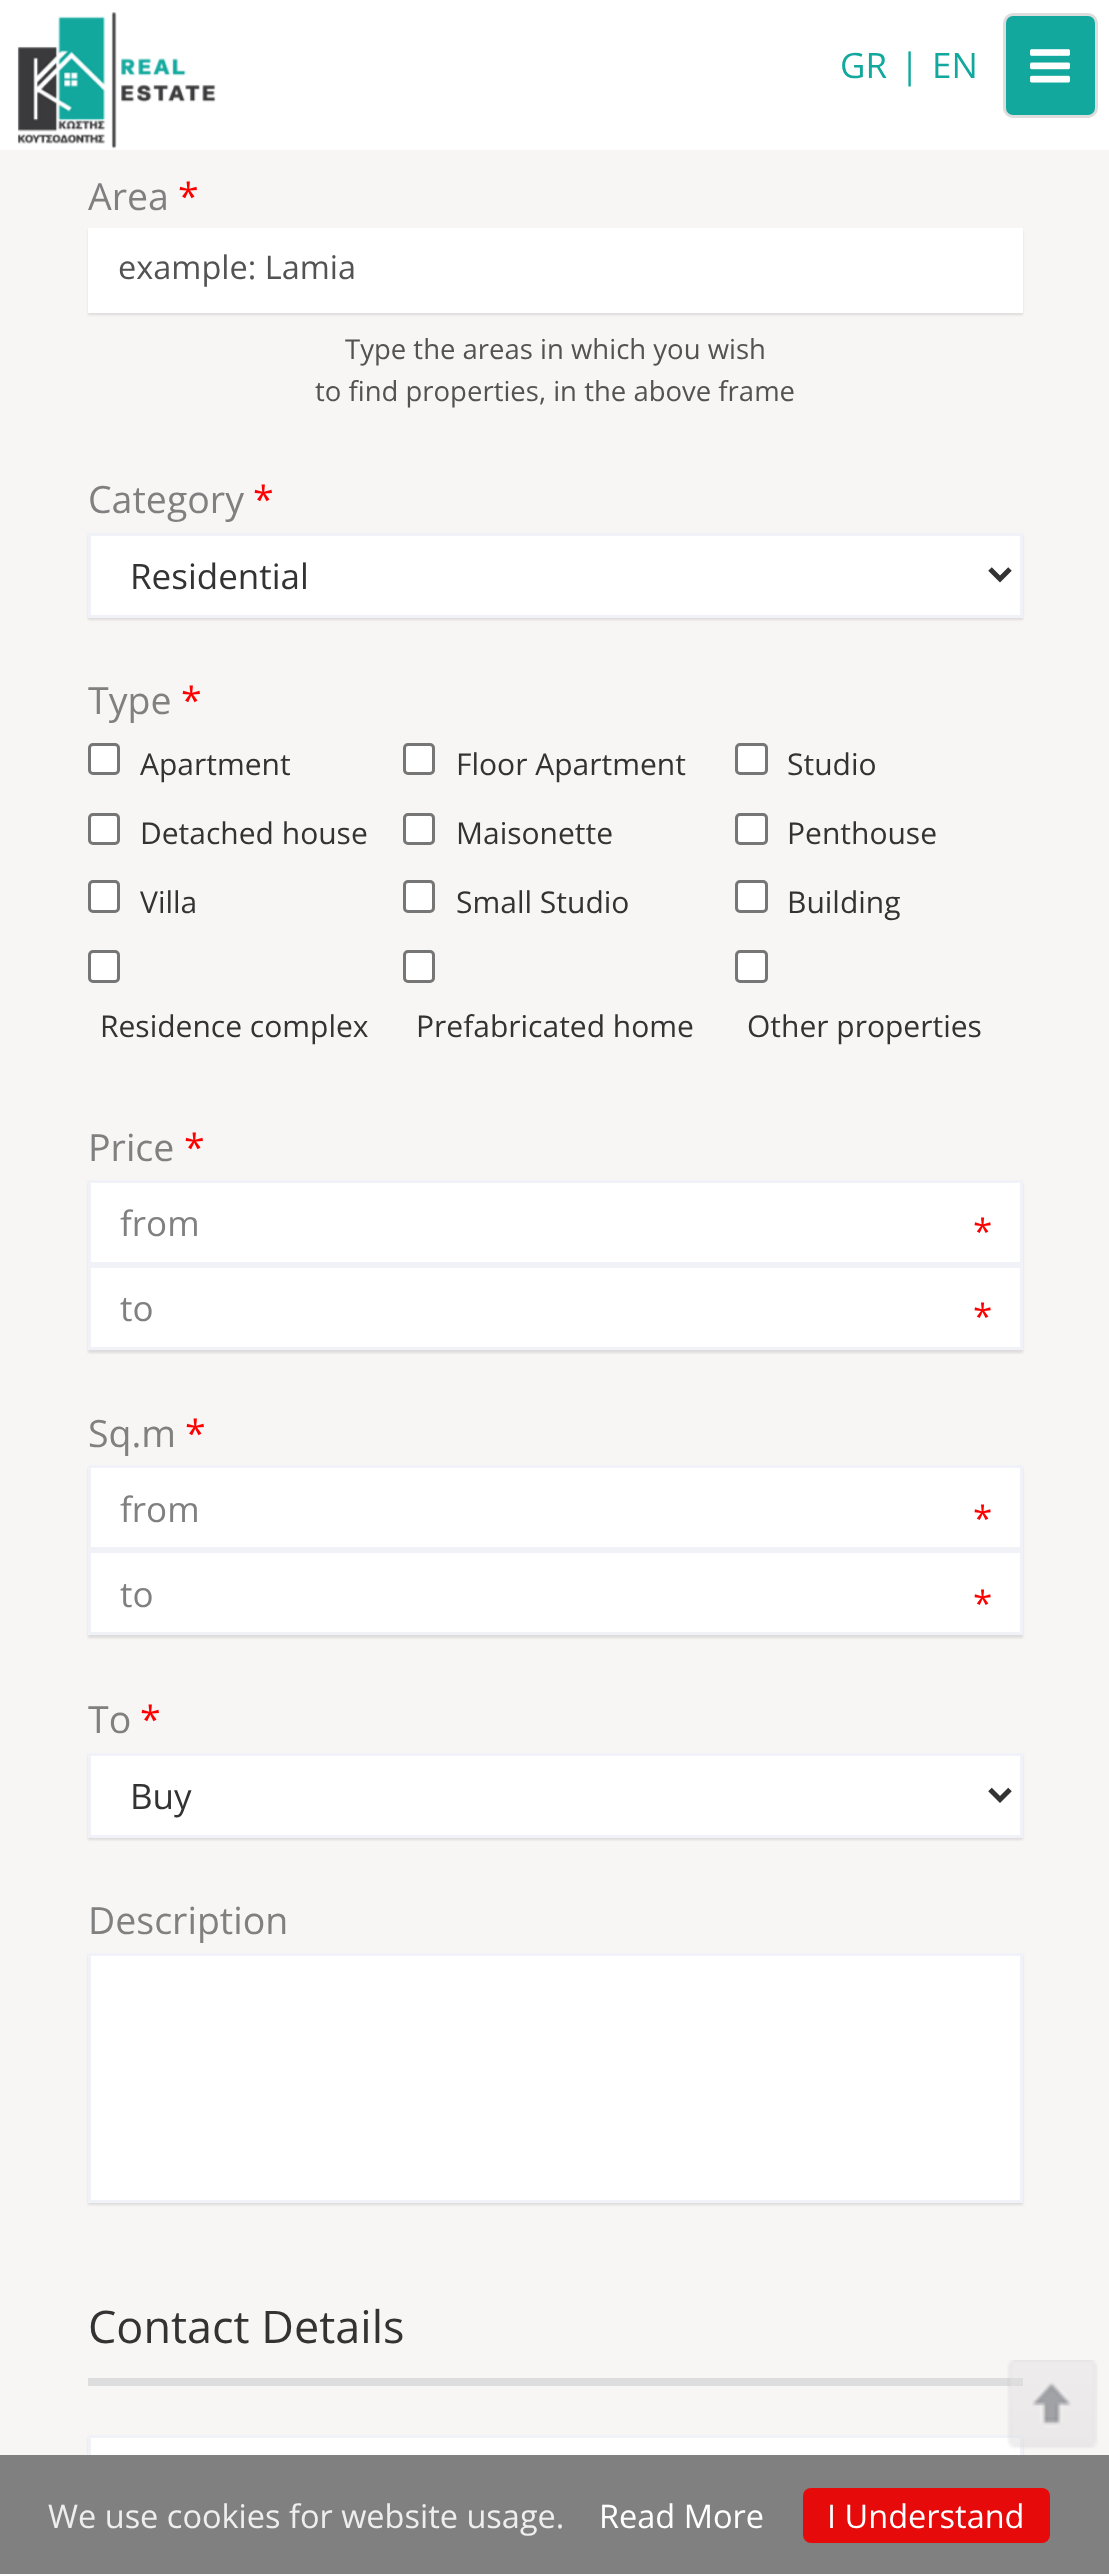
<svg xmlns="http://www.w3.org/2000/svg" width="1109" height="2574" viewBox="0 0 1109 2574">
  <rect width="100%" height="100%" fill="#f8f5f5"/>
  <path d="M0 0h1109v150H0z" fill="#fff"/>
  <image x="17" y="12" width="199" height="137" href="img/1.png"/>
  <rect x="1004.5" y="14.5" width="92" height="102" rx="8.5" fill="#13a89e" stroke="#ddd" stroke-width="3"/>
  <image x="1030" y="49" width="40" height="34" href="img/2.png"/>
  <path d="M88 230h935v85H88z" fill="#0000001a" filter="blur(1px)"/>
  <path d="M88 228h935v85H88z" fill="#fff"/>
  <path d="M88 535h935v85H88z" fill="#0000001a" filter="blur(1px)"/>
  <path d="M89.5 534.5h932v82H89.5z" fill="#fff" stroke="#f1f2f7" stroke-width="3"/>
  <path d="M990 569L1000 579L1010 569" fill="none" stroke="#333" stroke-width="5"/>
  <rect x="89.5" y="744.5" width="29" height="29" rx="3.5" fill="#fff" stroke="#767676" stroke-width="3"/>
  <rect x="404.5" y="744.5" width="29" height="29" rx="3.5" fill="#fff" stroke="#767676" stroke-width="3"/>
  <rect x="736.5" y="744.5" width="30" height="29" rx="3.5" fill="#fff" stroke="#767676" stroke-width="3"/>
  <rect x="89.5" y="814.5" width="29" height="29" rx="3.5" fill="#fff" stroke="#767676" stroke-width="3"/>
  <rect x="404.5" y="814.5" width="29" height="29" rx="3.5" fill="#fff" stroke="#767676" stroke-width="3"/>
  <rect x="736.5" y="814.5" width="30" height="29" rx="3.5" fill="#fff" stroke="#767676" stroke-width="3"/>
  <rect x="89.5" y="881.5" width="29" height="30" rx="3.5" fill="#fff" stroke="#767676" stroke-width="3"/>
  <rect x="404.5" y="881.5" width="29" height="30" rx="3.5" fill="#fff" stroke="#767676" stroke-width="3"/>
  <rect x="736.5" y="881.5" width="30" height="30" rx="3.5" fill="#fff" stroke="#767676" stroke-width="3"/>
  <rect x="89.5" y="951.5" width="29" height="30" rx="3.5" fill="#fff" stroke="#767676" stroke-width="3"/>
  <rect x="404.5" y="951.5" width="29" height="30" rx="3.5" fill="#fff" stroke="#767676" stroke-width="3"/>
  <rect x="736.5" y="951.5" width="30" height="30" rx="3.5" fill="#fff" stroke="#767676" stroke-width="3"/>
  <path d="M88 1183h935v85H88z" fill="#0000001a" filter="blur(1px)"/>
  <path d="M89.5 1181.5h932v82H89.5z" fill="#fff" stroke="#f1f2f7" stroke-width="3"/>
  <path d="M88 1268h935v85H88z" fill="#0000001a" filter="blur(1px)"/>
  <path d="M89.5 1266.5h932v82H89.5z" fill="#fff" stroke="#f1f2f7" stroke-width="3"/>
  <path d="M88 1468h935v85H88z" fill="#0000001a" filter="blur(1px)"/>
  <path d="M89.5 1466.5h932v82H89.5z" fill="#fff" stroke="#f1f2f7" stroke-width="3"/>
  <path d="M88 1553h935v85H88z" fill="#0000001a" filter="blur(1px)"/>
  <path d="M89.5 1551.5h932v82H89.5z" fill="#fff" stroke="#f1f2f7" stroke-width="3"/>
  <path d="M88 1755h935v85H88z" fill="#0000001a" filter="blur(1px)"/>
  <path d="M89.5 1754.5h932v82H89.5z" fill="#fff" stroke="#f1f2f7" stroke-width="3"/>
  <path d="M990 1789.5L1000 1799.5L1010 1789.5" fill="none" stroke="#333" stroke-width="5"/>
  <path d="M88 1955h935v250H88z" fill="#0000001a" filter="blur(1px)"/>
  <path d="M89.5 1954.5h932v247H89.5z" fill="#fff" stroke="#f1f2f7" stroke-width="3"/>
  <path d="M88 2378h935v8H88z" fill="#ddd"/>
  <path d="M88 2438h935v85H88z" fill="#0000001a" filter="blur(1px)"/>
  <path d="M91 2438h929v17H91z" fill="#fff"/>
  <path d="M89.5 2436.5h932v82H89.5z" fill="none" stroke="#f1f2f7" stroke-width="3"/>
  <image x="1007" y="2360" width="91" height="89" href="img/3.png"/>
  <path d="M0 2455h1109v119H0z" fill="#808080"/>
  <rect x="803" y="2488" width="247" height="55" rx="8" fill="#e60a0b"/>
  <g font-family="Open Sans" font-size="35" fill="#13a89e">
    <text x="840" y="78">GR</text>
    <text x="900" y="78">|</text>
    <text x="932" y="78">EN</text>
  </g>
  <text x="88" y="210" font-family="Open Sans" font-size="37.5" fill="#808080">Area</text>
  <text x="178" y="210" font-family="Open Sans" font-size="37.5" fill="#f00">*</text>
  <text x="118" y="279" font-family="Open Sans" font-size="32.5" fill="#535353">example: Lamia</text>
  <g font-family="Open Sans" font-size="27.5" fill="#535353">
    <text x="345" y="359">Type the areas in which you wish</text>
    <text x="315" y="401">to find properties, in the above frame</text>
  </g>
  <text x="88" y="513" font-family="Open Sans" font-size="37.5" fill="#808080">Category</text>
  <text x="253" y="513" font-family="Open Sans" font-size="37.5" fill="#f00">*</text>
  <text x="130" y="589" font-family="Open Sans" font-size="35" fill="#333">Residential</text>
  <text x="88" y="714" font-family="Open Sans" font-size="37.5" fill="#808080">Type</text>
  <text x="181" y="714" font-family="Open Sans" font-size="37.5" fill="#f00">*</text>
  <g font-family="Open Sans" font-size="30" fill="#333">
    <text x="140" y="775">Apartment</text>
    <text x="456" y="775">Floor Apartment</text>
    <text x="787" y="775">Studio</text>
    <text x="140" y="844">Detached house</text>
    <text x="456" y="844">Maisonette</text>
    <text x="787" y="844">Penthouse</text>
    <text x="140" y="913">Villa</text>
    <text x="456" y="913">Small Studio</text>
    <text x="787" y="913">Building</text>
    <text x="100" y="1037">Residence complex</text>
    <text x="416" y="1037">Prefabricated home</text>
    <text x="747" y="1037">Other properties</text>
  </g>
  <text x="88" y="1161" font-family="Open Sans" font-size="37.5" fill="#808080">Price</text>
  <text x="184" y="1161" font-family="Open Sans" font-size="37.5" fill="#f00">*</text>
  <text x="120" y="1236" font-family="Open Sans" font-size="35" fill="#808080">from</text>
  <text x="973" y="1244" font-family="Open Sans" font-size="35" fill="#f00">*</text>
  <text x="120" y="1321" font-family="Open Sans" font-size="35" fill="#808080">to</text>
  <text x="973" y="1329" font-family="Open Sans" font-size="35" fill="#f00">*</text>
  <text x="88" y="1447" font-family="Open Sans" font-size="37.5" fill="#808080">Sq.m</text>
  <text x="185" y="1447" font-family="Open Sans" font-size="37.5" fill="#f00">*</text>
  <text x="120" y="1522" font-family="Open Sans" font-size="35" fill="#808080">from</text>
  <text x="973" y="1531" font-family="Open Sans" font-size="35" fill="#f00">*</text>
  <text x="120" y="1607" font-family="Open Sans" font-size="35" fill="#808080">to</text>
  <text x="973" y="1616" font-family="Open Sans" font-size="35" fill="#f00">*</text>
  <text x="88" y="1733" font-family="Open Sans" font-size="37.5" fill="#808080">To</text>
  <text x="140" y="1733" font-family="Open Sans" font-size="37.5" fill="#f00">*</text>
  <text x="130" y="1809" font-family="Open Sans" font-size="35" fill="#333">Buy</text>
  <text x="88" y="1934" font-family="Open Sans" font-size="37.5" fill="#808080">Description</text>
  <text x="88" y="2343" font-family="Open Sans" font-size="45" fill="#333">Contact Details</text>
  <text x="48" y="2528" font-family="Open Sans" font-size="32.5" fill="#eee">We use cookies for website usage.</text>
  <g font-family="Open Sans" font-size="32.5" fill="#fff">
    <text x="599" y="2528">Read More</text>
    <text x="827" y="2528">I Understand</text>
  </g>
</svg>
